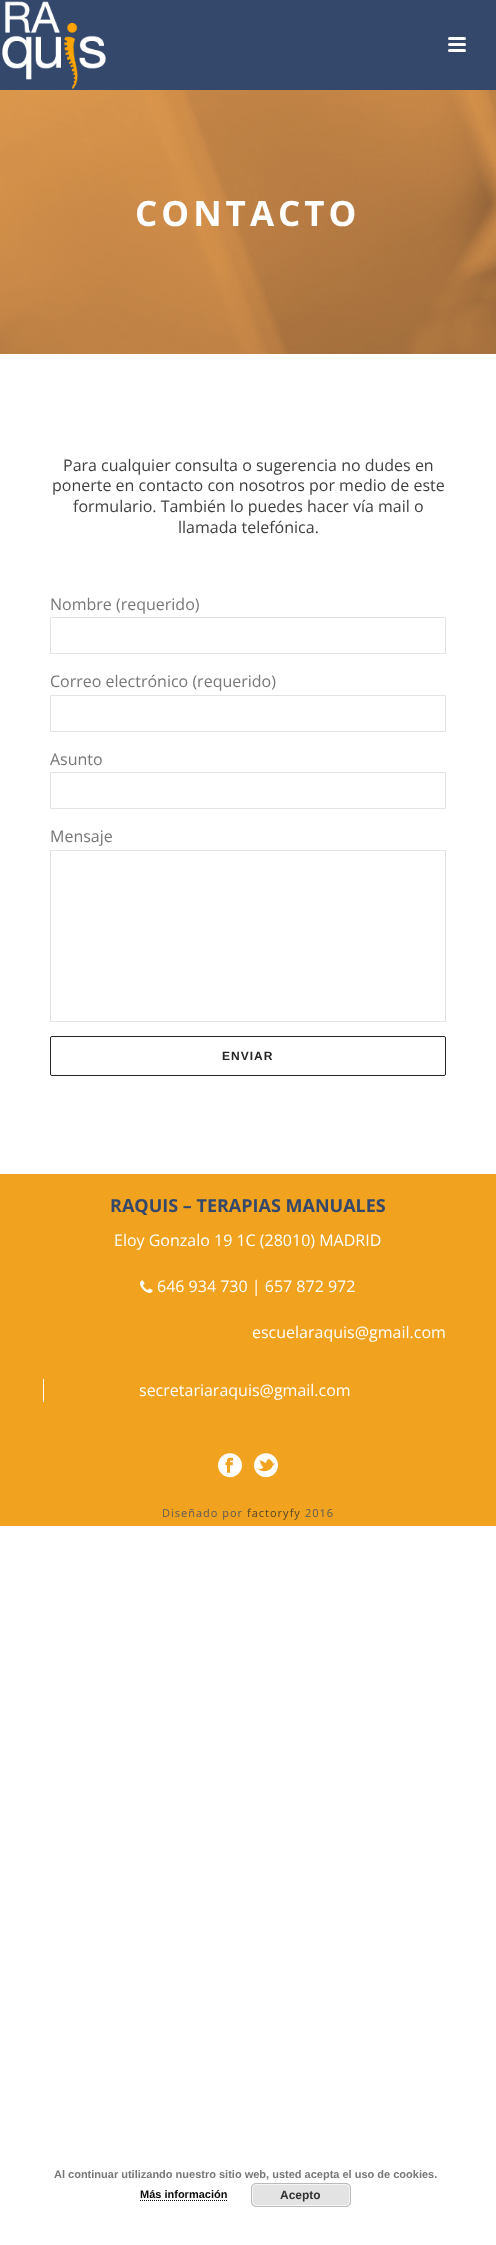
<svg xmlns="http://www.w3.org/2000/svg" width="496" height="2245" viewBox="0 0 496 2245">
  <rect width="100%" height="100%" fill="#fff"/>
  <path d="M0 0h496v90H0z" fill="#34486c"/>
  <image x="2" y="1" width="104" height="88" href="img/1.png"/>
  <rect x="448" y="37" width="18" height="3" rx="1.5" fill="#fff"/>
  <rect x="448" y="43" width="18" height="3" rx="1.5" fill="#fff"/>
  <rect x="448" y="49" width="18" height="3" rx="1.5" fill="#fff"/>
  <image x="0" y="90" width="496" height="264" href="img/2.png"/>
  <path d="M50.5 617.5h395v36H50.5z" fill="none" stroke="#e3e3e3"/>
  <path d="M50.5 695.5h395v36H50.5z" fill="none" stroke="#e3e3e3"/>
  <path d="M50.5 772.5h395v36H50.5z" fill="none" stroke="#e3e3e3"/>
  <path d="M50.5 850.5h395v171H50.5z" fill="none" stroke="#e3e3e3"/>
  <rect x="50.5" y="1036.5" width="395" height="39" rx="1.5" fill="none" stroke="#252525"/>
  <path d="M0 1174h496v352H0z" fill="#f1a21e"/>
  <image x="140" y="1280" width="13" height="13" href="img/3.png"/>
  <path d="M43 1379h1v23H43z" fill="#fff"/>
  <image x="218" y="1453" width="24" height="25" href="img/4.png"/>
  <image x="254" y="1453" width="24" height="25" href="img/5.png"/>
  <path d="M140 2200.5H228" fill="none" stroke="#0a0a0a" stroke-dasharray="1 1"/>
  <rect x="251" y="2183" width="100" height="24" rx="5" fill="#e3e3e3"/>
  <rect x="252.5" y="2184.5" width="97" height="21" rx="3.5" fill="none" stroke="#f6f6f6"/>
  <rect x="251.5" y="2183.5" width="99" height="23" rx="4.5" fill="none" stroke="#bbb"/>
  <text x="135" y="226" font-family="Open Sans" font-size="35" font-weight="bold" letter-spacing="4" fill="#fff">CONTACTO</text>
  <g font-family="Open Sans" font-size="16" fill="#404040">
    <text x="63" y="471">Para cualquier consulta o sugerencia no dudes en</text>
    <text x="52" y="491">ponerte en contacto con nosotros por medio de este</text>
    <text x="73" y="512">formulario. También lo puedes hacer vía mail o</text>
    <text x="178" y="533">llamada telefónica.</text>
  </g>
  <g font-family="Open Sans" font-size="16" fill="#777">
    <text x="50" y="610">Nombre (requerido)</text>
    <text x="50" y="687">Correo electrónico (requerido)</text>
    <text x="50" y="765">Asunto</text>
    <text x="50" y="842">Mensaje</text>
  </g>
  <text x="222" y="1060" font-family="Liberation Sans" font-size="12" font-weight="bold" letter-spacing="1" fill="#252525">ENVIAR</text>
  <text x="110" y="1212" font-family="Open Sans" font-size="18" font-weight="bold" fill="#34486c">RAQUIS – TERAPIAS MANUALES</text>
  <g font-family="Open Sans" font-size="16" fill="#fff">
    <text x="114" y="1246">Eloy Gonzalo 19 1C (28010) MADRID</text>
    <text x="157" y="1292">646 934 730 | 657 872 972</text>
    <text x="252" y="1338">escuelaraquis@gmail.com</text>
    <text x="139" y="1396">secretariaraquis@gmail.com</text>
  </g>
  <text x="162" y="1517" font-family="Open Sans" font-size="11" letter-spacing="1" fill="#5a5a5c">Diseñado por</text>
  <text x="247" y="1517" font-family="Open Sans" font-size="11" letter-spacing="1" fill="#55452b">factoryfy</text>
  <text x="305" y="1517" font-family="Open Sans" font-size="11" letter-spacing="1" fill="#5a5a5c">2016</text>
  <text x="54" y="2178" font-family="Liberation Sans" font-size="11" font-weight="bold" fill="#777">Al continuar utilizando nuestro sitio web, usted acepta el uso de cookies.</text>
  <text x="140" y="2198" font-family="Liberation Sans" font-size="11" font-weight="bold" fill="#0a0a0a">Más información</text>
  <text x="280" y="2199" font-family="Liberation Sans" font-size="12" font-weight="bold" fill="#333">Acepto</text>
</svg>
